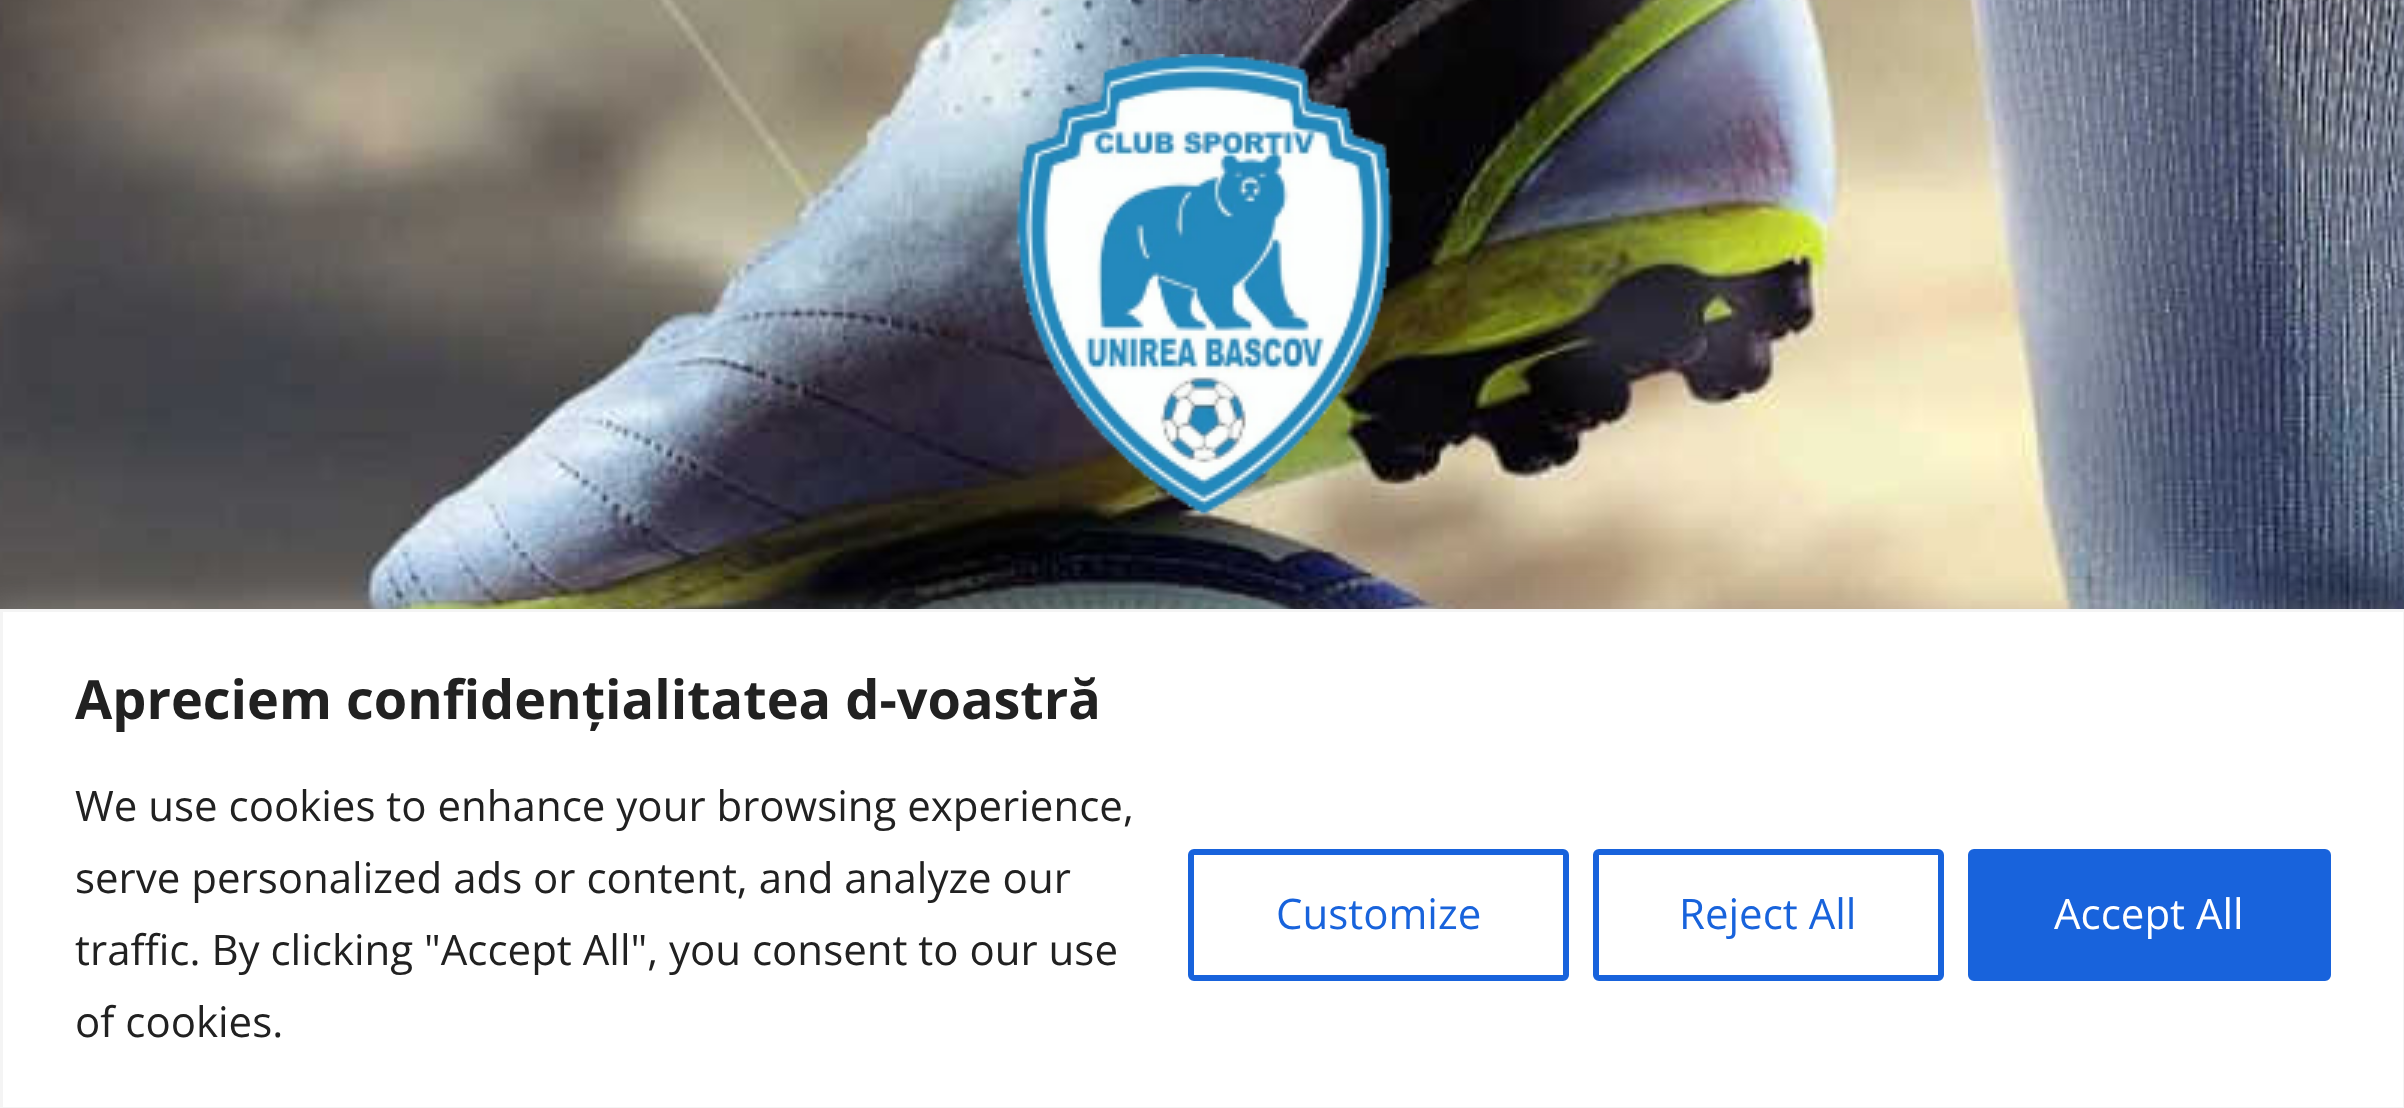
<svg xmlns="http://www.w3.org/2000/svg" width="2404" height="1108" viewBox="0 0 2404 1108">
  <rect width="100%" height="100%" fill="#fff"/>
  <image x="0" y="0" width="2404" height="609" href="img/1.png"/>
  <image x="1016" y="54" width="377" height="462" href="img/2.png"/>
  <path d="M0 606h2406v501H0z" fill="#acabab4d" filter="blur(15px)"/>
  <path d="M1.5 610.5h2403v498H1.5z" fill="#fff" stroke="#f4f4f4" stroke-width="3"/>
  <rect x="1191" y="852" width="375" height="126" rx="3" fill="none" stroke="#1863dc" stroke-width="6"/>
  <rect x="1596" y="852" width="345" height="126" rx="3" fill="none" stroke="#1863dc" stroke-width="6"/>
  <rect x="1971" y="852" width="357" height="126" rx="3" fill="#1863dc" stroke="#1863dc" stroke-width="6"/>
  <text x="75" y="719" font-family="Open Sans" font-size="54" font-weight="bold" fill="#212121">Apreciem confidențialitatea d-voastră</text>
  <g font-family="Open Sans" font-size="42" fill="#212121">
    <text x="75" y="821">We use cookies to enhance your browsing experience,</text>
    <text x="75" y="893">serve personalized ads or content, and analyze our</text>
    <text x="75" y="965">traffic. By clicking "Accept All", you consent to our use</text>
    <text x="75" y="1037">of cookies.</text>
  </g>
  <g font-family="Open Sans" font-size="42" fill="#1863dc">
    <text x="1276" y="929">Customize</text>
    <text x="1679" y="929">Reject All</text>
  </g>
  <text x="2054" y="929" font-family="Open Sans" font-size="42" fill="#fff">Accept All</text>
</svg>
